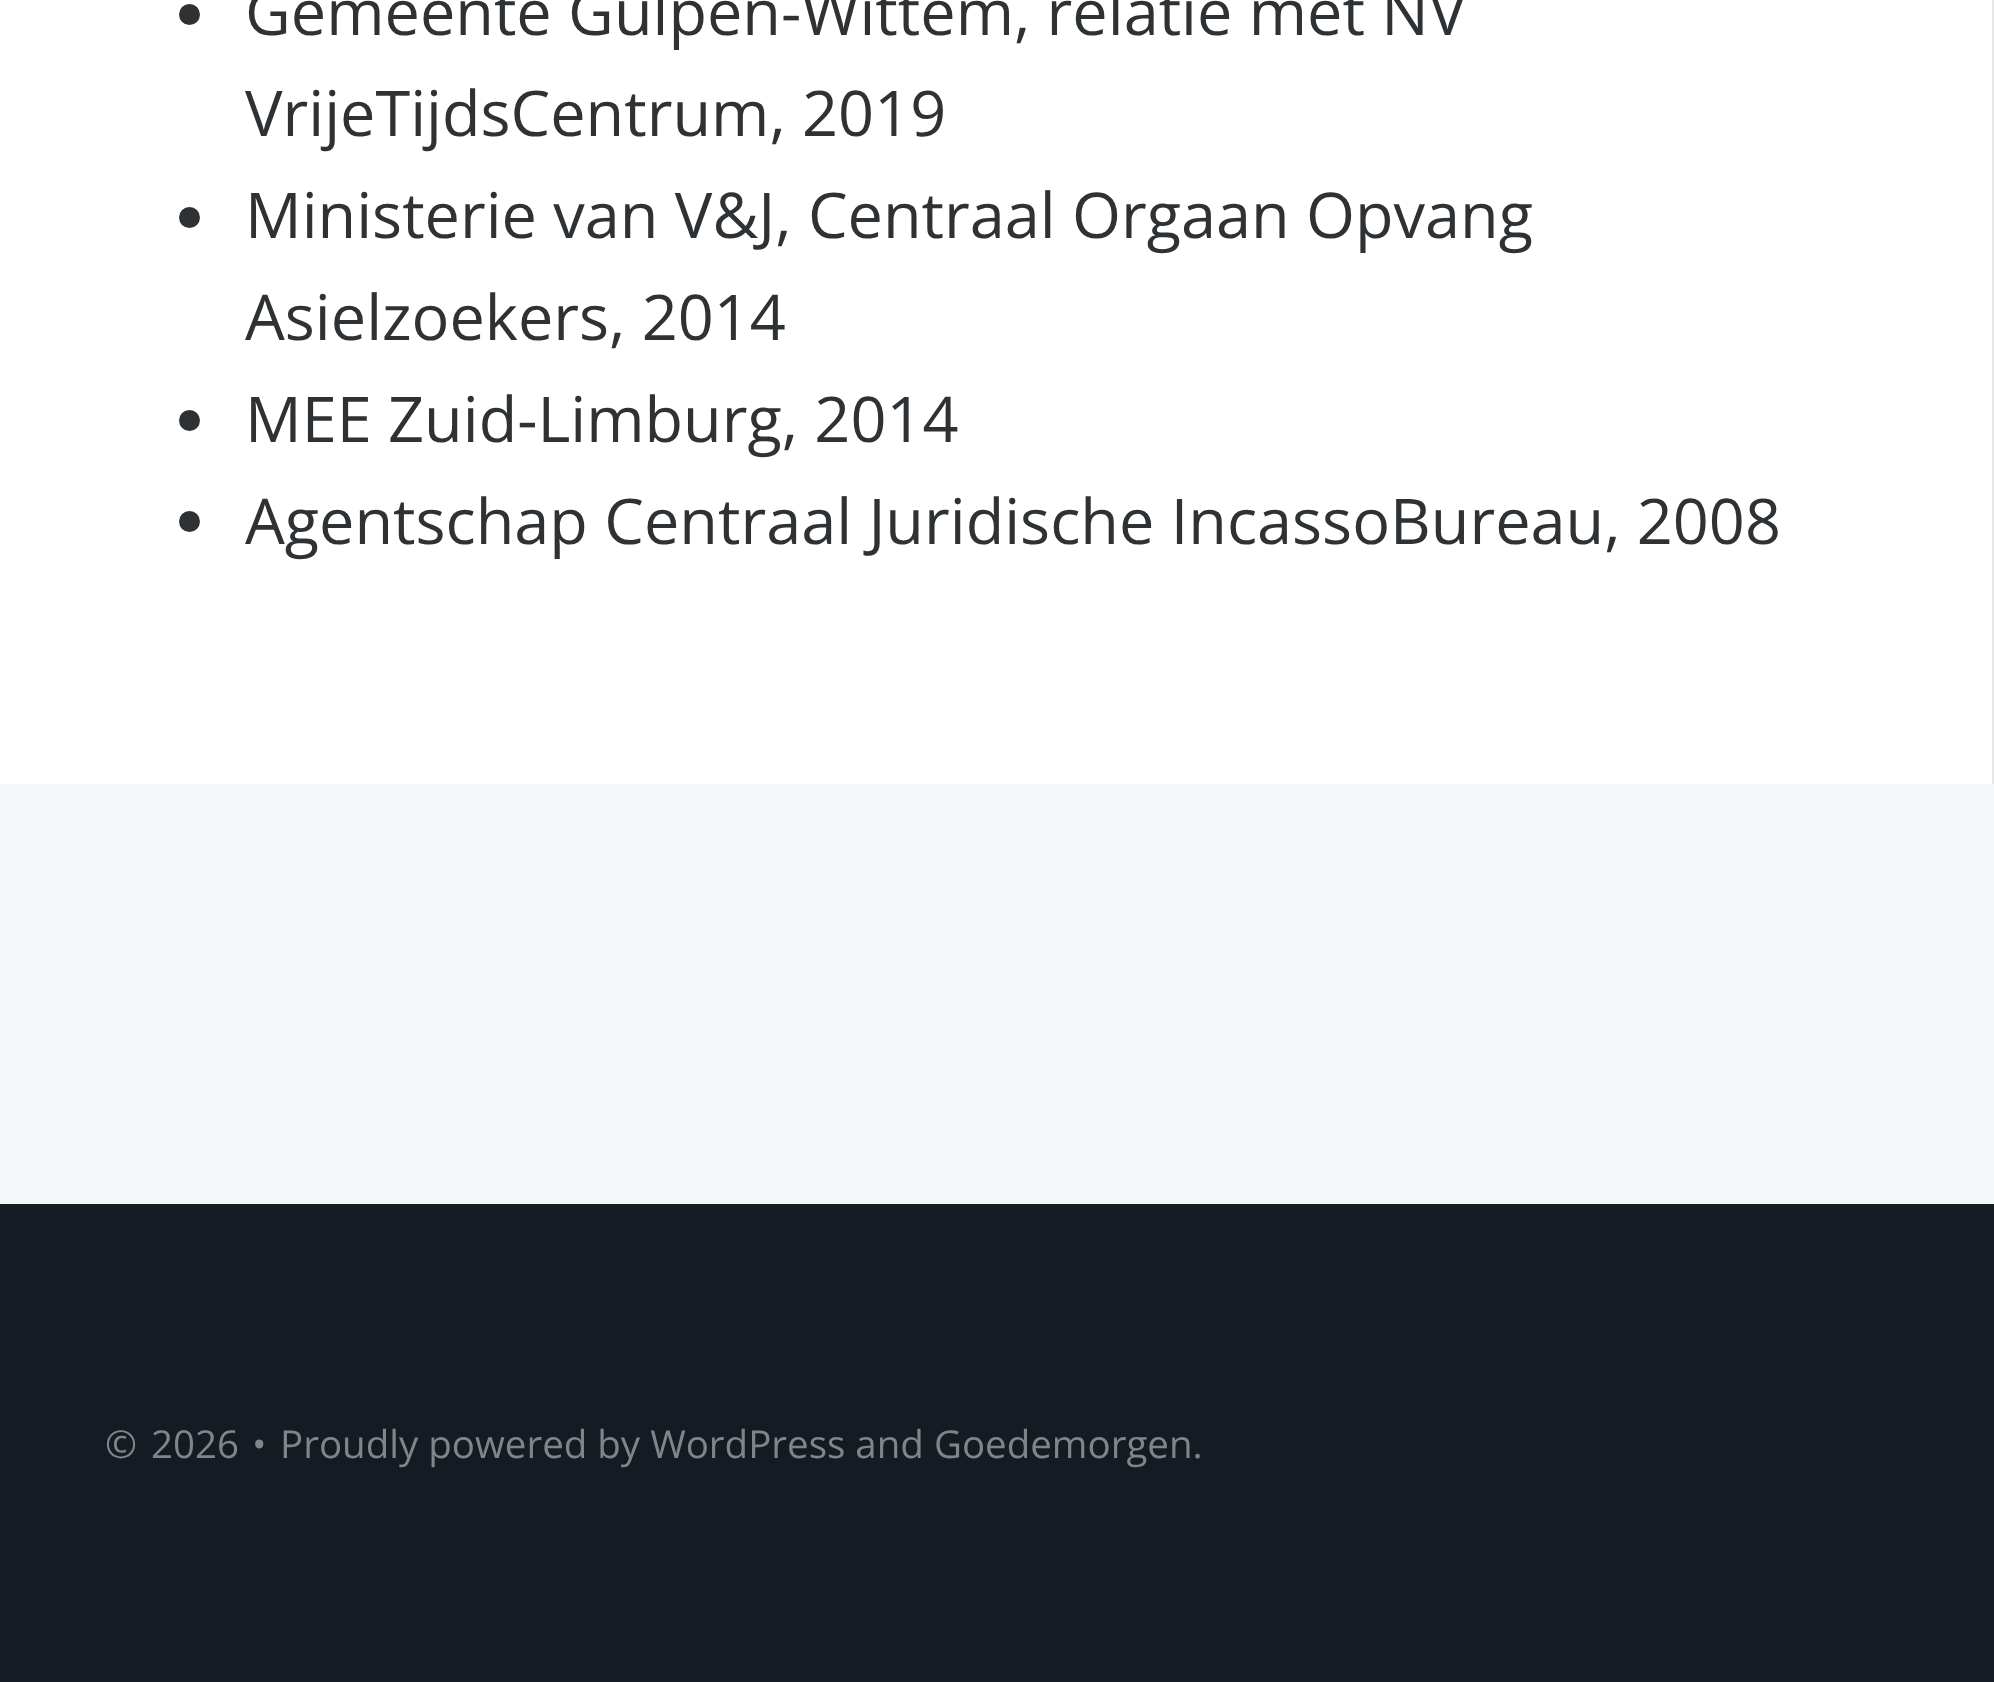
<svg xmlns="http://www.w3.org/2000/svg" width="1994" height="1682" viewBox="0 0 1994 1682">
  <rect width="100%" height="100%" fill="#f5f6f7"/>
  <path d="M1992 0h2v784H1992z" fill="#e6e8e8"/>
  <path d="M0 0h1992v784H0z" fill="#fff"/>
  <circle cx="189.5" cy="14.5" r="10.5" fill="#2f3234"/>
  <circle cx="189.5" cy="217.5" r="10.5" fill="#2f3234"/>
  <circle cx="189.5" cy="420.5" r="10.5" fill="#2f3234"/>
  <circle cx="189.5" cy="521.5" r="10.5" fill="#2f3234"/>
  <path d="M0 1204h1994v478H0z" fill="#151b22"/>
  <g font-family="Open Sans" font-size="63" fill="#2f3234">
    <text x="245" y="35">Gemeente Gulpen-Wittem, relatie met NV</text>
    <text x="245" y="136">VrijeTijdsCentrum, 2019</text>
    <text x="245" y="238">Ministerie van V&amp;J, Centraal Orgaan Opvang</text>
    <text x="245" y="340">Asielzoekers, 2014</text>
    <text x="245" y="442">MEE Zuid-Limburg, 2014</text>
    <text x="245" y="544">Agentschap Centraal Juridische IncassoBureau, 2008</text>
  </g>
  <g font-family="Open Sans" font-size="38.5" fill="#818589">
    <text x="105" y="1458">©</text>
    <text x="151" y="1458">2026</text>
    <text x="252" y="1458">•</text>
    <text x="280" y="1458">Proudly powered by WordPress and Goedemorgen.</text>
  </g>
</svg>
